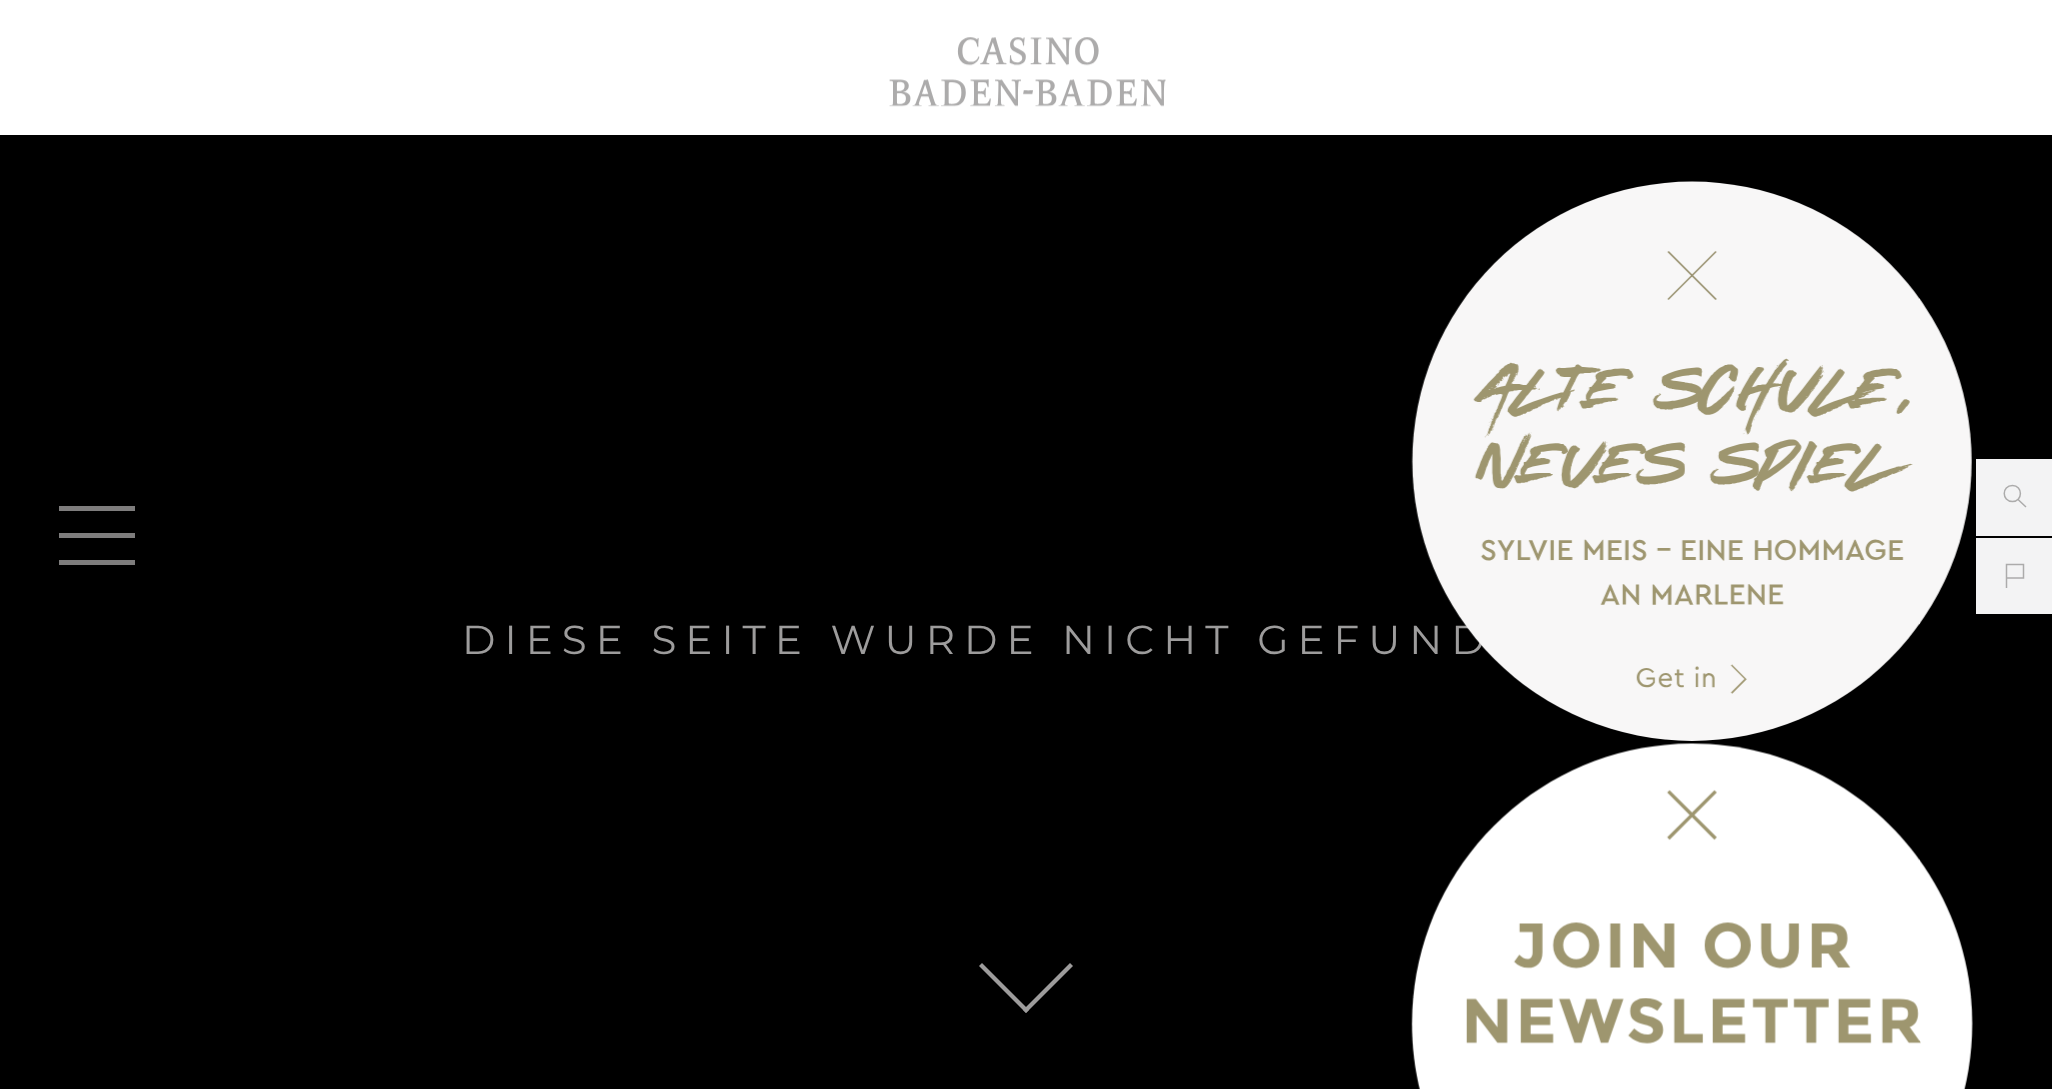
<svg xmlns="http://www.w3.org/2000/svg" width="2052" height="1089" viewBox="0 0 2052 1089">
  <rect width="100%" height="100%" fill="#000"/>
  <path d="M0 0h2052v135H0z" fill="#fff"/>
  <image x="889" y="37" width="277" height="70" href="img/1.png"/>
  <path d="M1976 459h76v77H1976z" fill="#f3f3f4"/>
  <path d="M2026 507L2017.5 499M2012.5 501.5C2023 501.5 2023 485.5 2012.5 485.5C2001.5 485.5 2001.5 501.5 2012.5 501.5Z" fill="none" stroke="#acabab" stroke-width="1.5"/>
  <path d="M1976 538h76v76H1976z" fill="#f3f3f4"/>
  <path d="M2023.5 578H2006.5V564.5H2023.5ZM2006.5 564.5V588" fill="none" stroke="#acabab" stroke-width="1.5"/>
  <path d="M59 533h76v5H59z" fill="#7e7d7d"/>
  <path d="M59 506h76v5H59z" fill="#7e7d7d"/>
  <path d="M59 560h76v5H59z" fill="#7e7d7d"/>
  <image x="1411" y="743" width="562" height="346" href="img/3.png"/>
  <path d="M1070 963L1073 966L1026 1013L1023 1010Z" fill="#9d9c9c"/>
  <path d="M982 963L1029 1010L1026 1013L979 966Z" fill="#9d9c9c"/>
  <text x="462" y="654" font-family="Montserrat" font-size="40.5" letter-spacing="9" fill="#9d9c9c">DIESE SEITE WURDE NICHT GEFUND</text>
  <image x="1411" y="181" width="561" height="560" href="img/2.png"/>
</svg>
